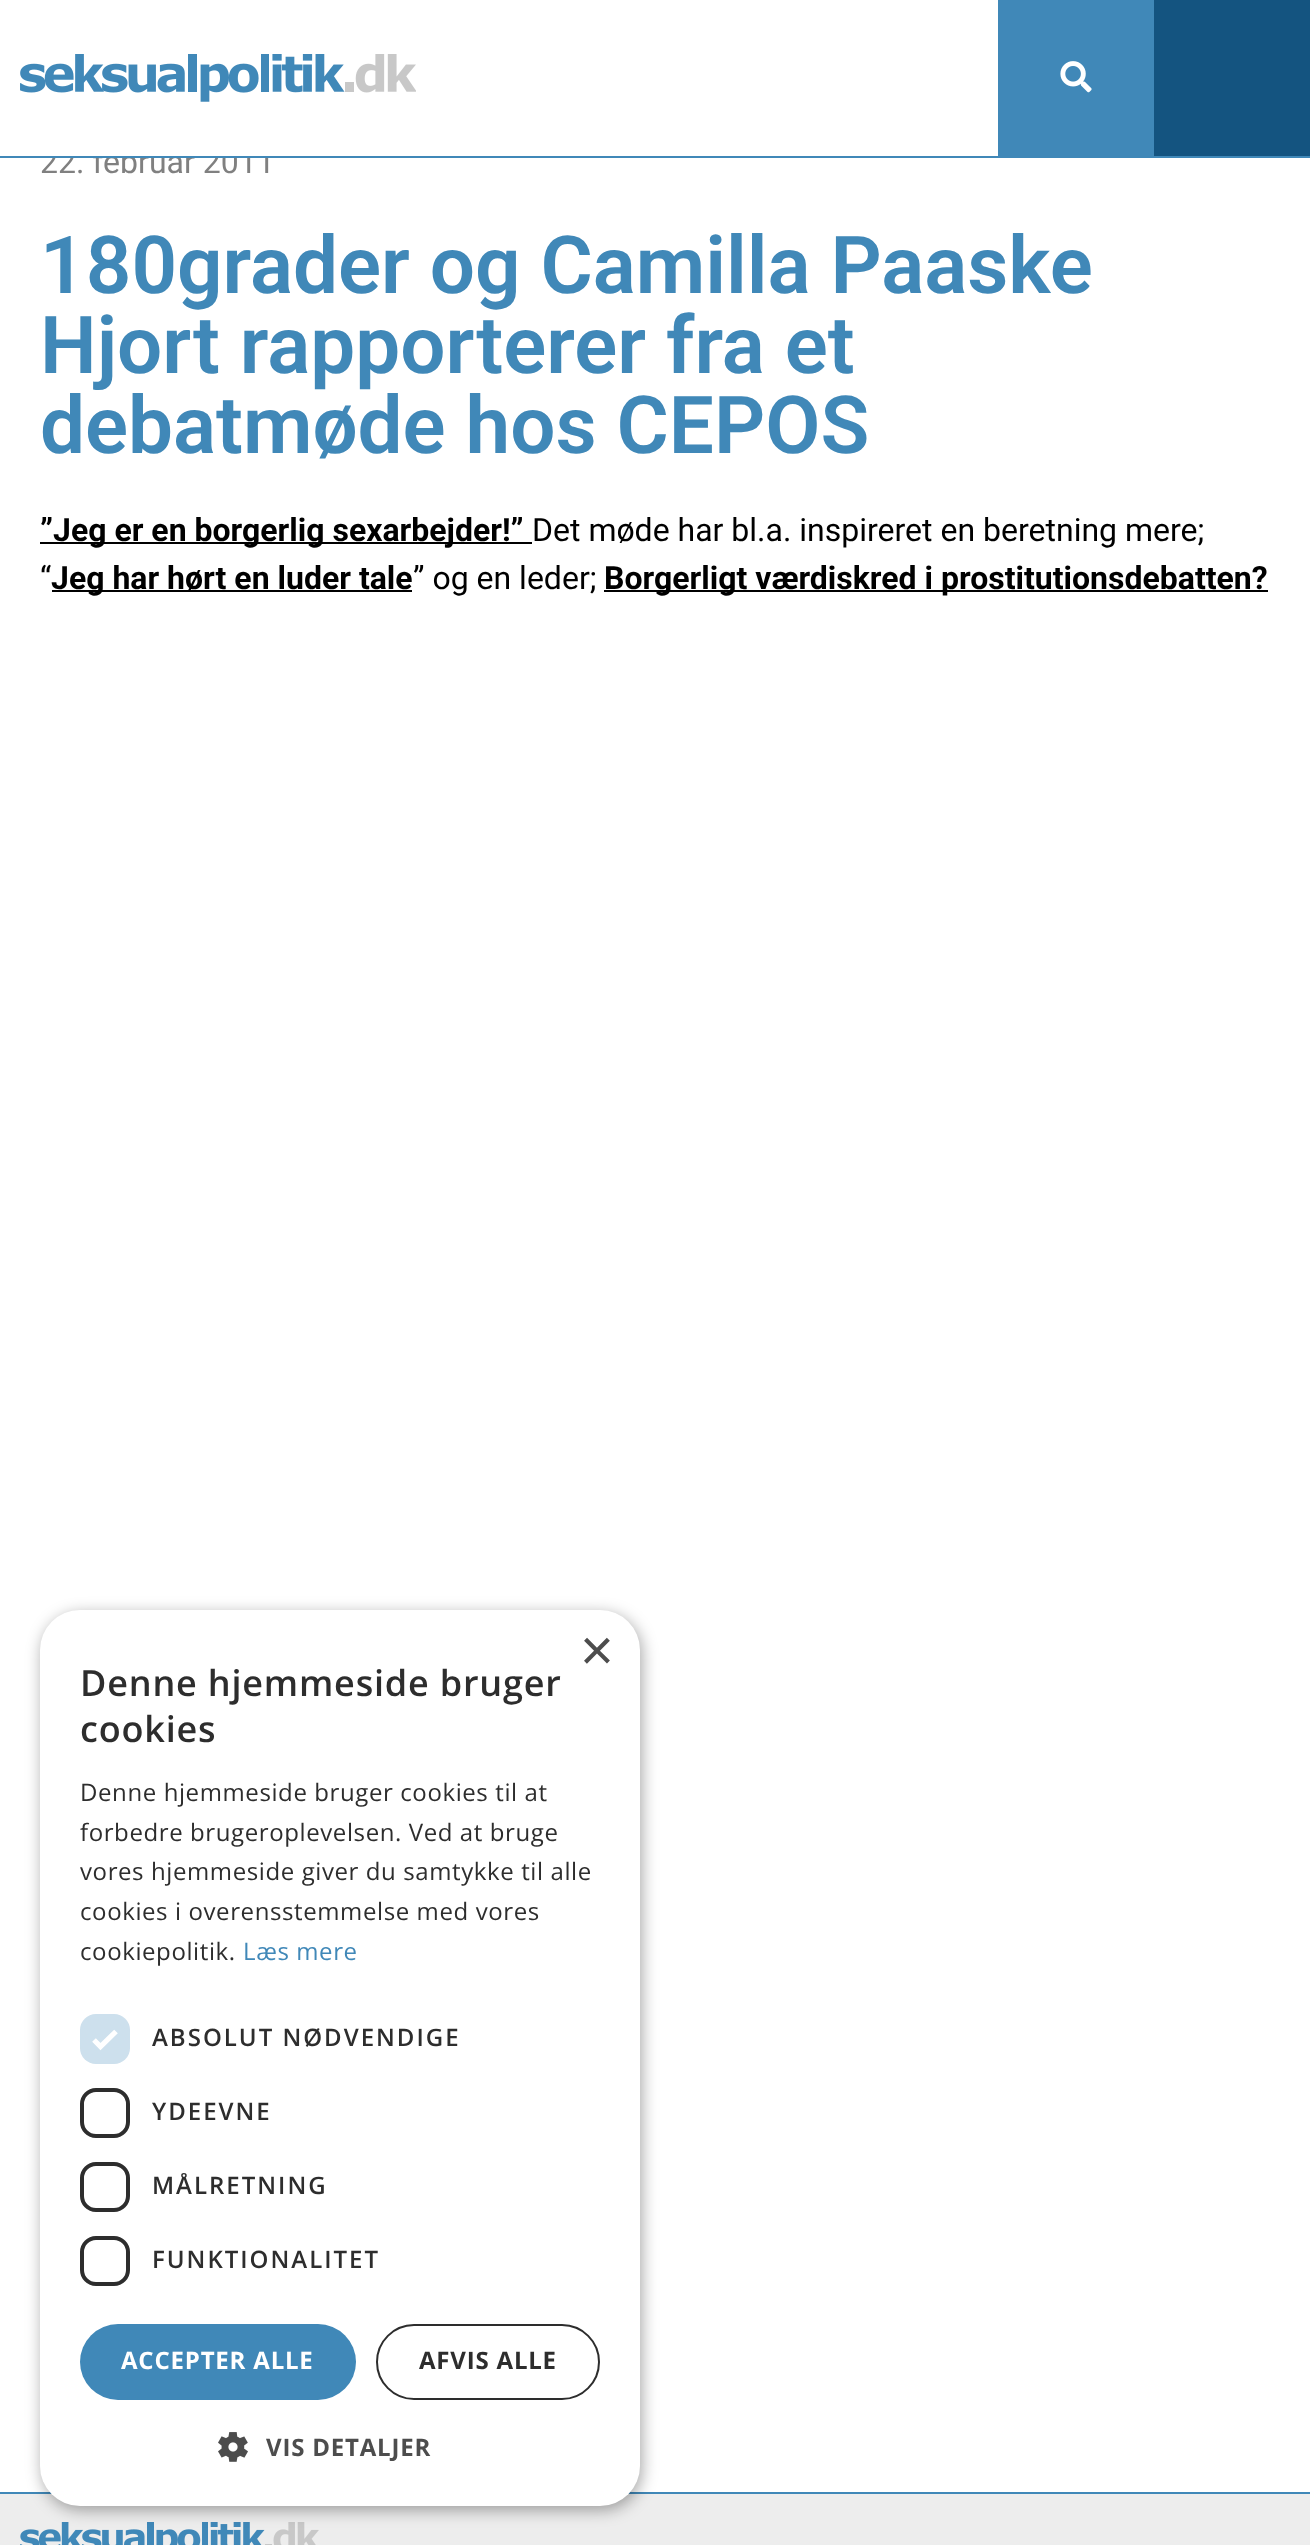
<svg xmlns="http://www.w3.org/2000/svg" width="1310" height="2545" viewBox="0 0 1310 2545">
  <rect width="100%" height="100%" fill="#fff"/>
  <image x="20" y="54" width="396" height="48" href="img/1.png"/>
  <path d="M998 0h156v156H998z" fill="#4088b8"/>
  <image x="1060" y="61" width="32" height="32" href="img/2.png"/>
  <path d="M1154 0h156v156H1154z" fill="#145480"/>
  <path d="M0 2492h1310v2H0z" fill="#4088b8"/>
  <path d="M40 542h492v2H40z" fill="#000"/>
  <path d="M52 590h360v2H52z" fill="#000"/>
  <path d="M604 590h664v2H604z" fill="#000"/>
  <path d="M0 2494h1310v51H0z" fill="#ededed"/>
  <image x="20" y="2522" width="299" height="23" href="img/4.png"/>
  <rect x="42" y="1614" width="600" height="896" rx="40" fill="#00000059" filter="blur(8px)"/>
  <rect x="40" y="1610" width="600" height="896" rx="40" fill="#fff"/>
  <rect x="80" y="2014" width="50" height="50" rx="16" fill="#cde0ed"/>
  <path d="M94 2040L100.5 2046.5L116 2031.5" fill="none" stroke="#fff" stroke-width="5.2"/>
  <rect x="82" y="2090" width="46" height="46" rx="14" fill="none" stroke="#2d2d2d" stroke-width="4"/>
  <rect x="82" y="2164" width="46" height="46" rx="14" fill="none" stroke="#2d2d2d" stroke-width="4"/>
  <rect x="82" y="2238" width="46" height="46" rx="14" fill="none" stroke="#2d2d2d" stroke-width="4"/>
  <rect x="80" y="2324" width="276" height="76" rx="38" fill="#4088b8"/>
  <rect x="377" y="2325" width="222" height="74" rx="37" fill="none" stroke="#2d2d2d" stroke-width="2"/>
  <image x="218" y="2432" width="30" height="30" href="img/3.png"/>
  <text x="40" y="173" font-family="Roboto" font-size="32" fill="#808080">22. februar 2011</text>
  <path d="M0 156h1310v2H0z" fill="#4088b8"/>
  <path d="M41 148h228v8H41z" fill="#fff"/>
  <g font-family="Roboto" font-size="80" font-weight="600" fill="#4088b8">
    <text x="40" y="293">180grader og Camilla Paaske</text>
    <text x="40" y="373">Hjort rapporterer fra et</text>
    <text x="40" y="453">debatmøde hos CEPOS</text>
  </g>
  <text x="40" y="541" font-family="Roboto" font-size="32" font-weight="bold" fill="#000">”Jeg er en borgerlig sexarbejder!”</text>
  <g font-family="Roboto" font-size="32" fill="#000">
    <text x="532" y="541">Det møde har bl.a. inspireret en beretning mere;</text>
    <text x="40" y="589">“</text>
  </g>
  <text x="51" y="589" font-family="Roboto" font-size="32" font-weight="bold" fill="#000">Jeg har hørt en luder tale</text>
  <text x="413" y="589" font-family="Roboto" font-size="32" fill="#000">” og en leder;</text>
  <text x="604" y="589" font-family="Roboto" font-size="32" font-weight="bold" fill="#000">Borgerligt værdiskred i prostitutionsdebatten?</text>
  <text x="580" y="1670" font-family="Liberation Sans" font-size="58" fill="#4d4d4d">×</text>
  <g font-family="Open Sans" font-size="36" font-weight="600" letter-spacing="0.8" fill="#2d2d2d">
    <text x="80" y="1696">Denne hjemmeside bruger</text>
    <text x="80" y="1742">cookies</text>
  </g>
  <g font-family="Open Sans" font-size="24" letter-spacing="0.6" fill="#2d2d2d">
    <text x="80" y="1801">Denne hjemmeside bruger cookies til at</text>
    <text x="80" y="1841">forbedre brugeroplevelsen. Ved at bruge</text>
    <text x="80" y="1880">vores hjemmeside giver du samtykke til alle</text>
    <text x="80" y="1920">cookies i overensstemmelse med vores</text>
    <text x="80" y="1960">cookiepolitik.</text>
  </g>
  <text x="243" y="1960" font-family="Open Sans" font-size="24" letter-spacing="0.6" fill="#4088b8">Læs mere</text>
  <g font-family="Open Sans" font-size="24" font-weight="600" letter-spacing="2" fill="#2d2d2d">
    <text x="152" y="2046">ABSOLUT NØDVENDIGE</text>
    <text x="152" y="2120">YDEEVNE</text>
    <text x="152" y="2194">MÅLRETNING</text>
    <text x="152" y="2268">FUNKTIONALITET</text>
  </g>
  <text x="121" y="2369" font-family="Open Sans" font-size="24" font-weight="bold" letter-spacing="0.8" fill="#fff">ACCEPTER ALLE</text>
  <text x="419" y="2369" font-family="Open Sans" font-size="24" font-weight="bold" letter-spacing="0.8" fill="#2d2d2d">AFVIS ALLE</text>
  <text x="266" y="2456" font-family="Open Sans" font-size="24" font-weight="bold" letter-spacing="0.8" fill="#4d4d4d">VIS DETALJER</text>
</svg>
